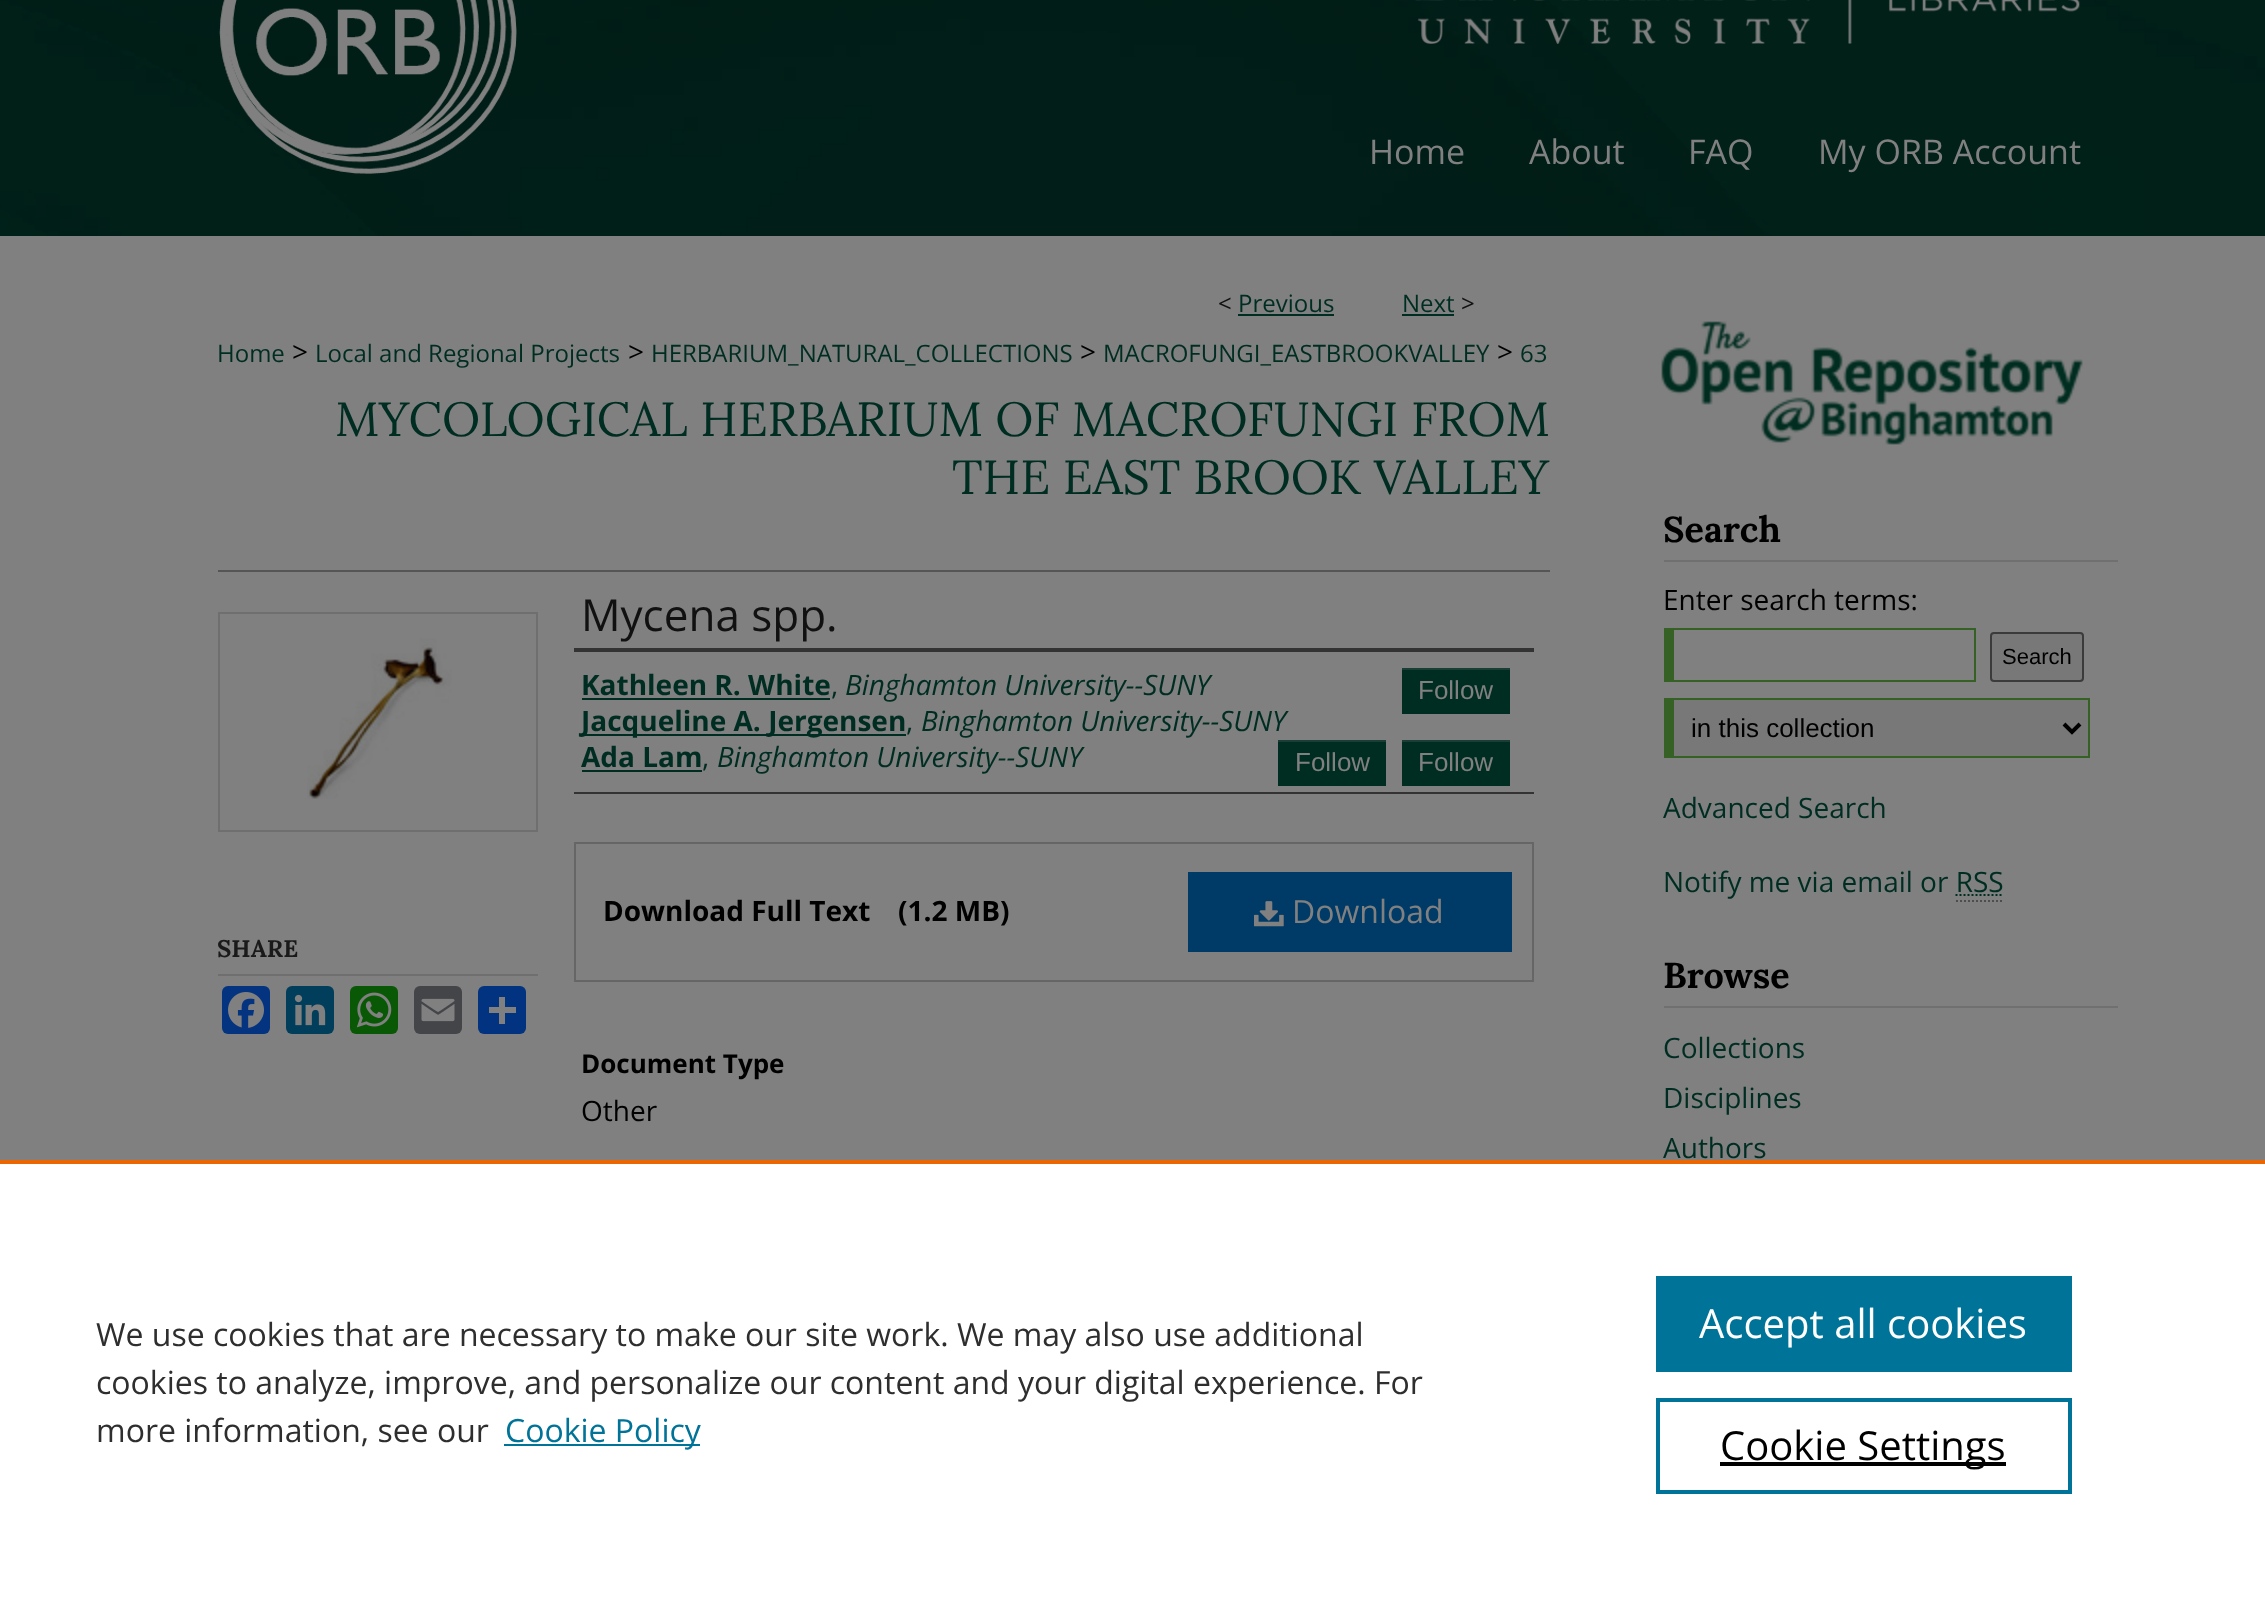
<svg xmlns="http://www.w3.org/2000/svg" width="2265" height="1599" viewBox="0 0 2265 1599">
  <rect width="100%" height="100%" fill="#808080"/>
  <image x="0" y="0" width="2265" height="236" href="img/1.png"/>
  <image x="219" y="0" width="298" height="174" href="img/2.png"/>
  <image x="1415" y="0" width="665" height="44" href="img/3.png"/>
  <path d="M1238 314h96v2H1238z" fill="#002d22"/>
  <path d="M1402 314h52v2H1402z" fill="#002d22"/>
  <path d="M219 613h318v218H219z" fill="none" stroke="#6f6f6f" stroke-width="2"/>
  <image x="307" y="638" width="145" height="161" href="img/4.png"/>
  <path d="M218 974h320v2H218z" fill="#6f6f6f"/>
  <rect x="222" y="986" width="48" height="48" rx="6" fill="#043380"/>
  <image x="228" y="992" width="36" height="36" href="img/5.png"/>
  <rect x="286" y="986" width="48" height="48" rx="6" fill="#003e5b"/>
  <image x="294" y="994" width="32" height="32" href="img/6.png"/>
  <rect x="350" y="986" width="48" height="48" rx="6" fill="#095805"/>
  <image x="356" y="992" width="36" height="36" href="img/7.png"/>
  <rect x="414" y="986" width="48" height="48" rx="6" fill="#444548"/>
  <image x="421" y="998" width="34" height="24" href="img/8.png"/>
  <rect x="478" y="986" width="48" height="48" rx="6" fill="#013380"/>
  <path d="M499 997h6v27H499z" fill="#808080"/>
  <path d="M489 1007h27v6H489z" fill="#808080"/>
  <path d="M218 570h1332v2H218z" fill="#555"/>
  <path d="M574 648h960v4H574z" fill="#333"/>
  <path d="M574 792h960v2H574z" fill="#333"/>
  <path d="M582 698h248v2H582z" fill="#002d22"/>
  <path d="M1402 670h108v44H1402z" fill="#002d22"/>
  <path d="M1402 668h108v2H1402z" fill="#1a3e35"/>
  <path d="M582 734h324v2H582z" fill="#002d22"/>
  <path d="M582 770h120v2H582z" fill="#002d22"/>
  <path d="M1278 742h108v44H1278z" fill="#002d22"/>
  <path d="M1278 740h108v2H1278z" fill="#1a3e35"/>
  <path d="M1402 742h108v44H1402z" fill="#002d22"/>
  <path d="M1402 740h108v2H1402z" fill="#1a3e35"/>
  <path d="M575 843h958v138H575z" fill="none" stroke="#666" stroke-width="2"/>
  <path d="M1188 872h324v80H1188z" fill="#003a66"/>
  <image x="1254" y="901" width="30" height="26" href="img/9.png"/>
  <image x="1661" y="321" width="422" height="124" href="img/10.png"/>
  <path d="M1664 560h454v2H1664z" fill="#707070"/>
  <path d="M1674 628h302v2H1674z" fill="#366125"/>
  <path d="M1974 628h2v54H1974z" fill="#366125"/>
  <path d="M1674 680h302v2H1674z" fill="#366125"/>
  <path d="M1664 628h10v54H1664z" fill="#366125"/>
  <rect x="1991" y="633" width="92" height="48" rx="3" fill="#787878" stroke="#3b3b3b" stroke-width="2"/>
  <path d="M1674 700h414v56H1674z" fill="#787878"/>
  <path d="M1674 698h416v2H1674z" fill="#366125"/>
  <path d="M2088 698h2v60H2088z" fill="#366125"/>
  <path d="M1674 756h416v2H1674z" fill="#366125"/>
  <path d="M1664 698h10v60H1664z" fill="#366125"/>
  <path d="M2064 724L2072 732L2080 724" fill="none" stroke="#000" stroke-width="4"/>
  <path d="M1955.5 895H2003.5" fill="none" stroke="#002d22" stroke-width="2" stroke-dasharray="2 2"/>
  <path d="M1956 901H2004" fill="none" stroke="#4d4d4d" stroke-width="2" stroke-dasharray="2 2"/>
  <path d="M1664 1006h454v2H1664z" fill="#707070"/>
  <path d="M0 1164h2265v435H0z" fill="#fff"/>
  <path d="M0 1160h2265v4H0z" fill="#eb6500"/>
  <path d="M504 1444h196v2H504z" fill="#007398"/>
  <path d="M1656 1276h416v96H1656z" fill="#007398"/>
  <path d="M1658 1400h412v92H1658z" fill="none" stroke="#007398" stroke-width="4"/>
  <path d="M1720 1462h286v4H1720z" fill="#000"/>
  <g font-family="Open Sans" font-size="34" fill="#808080">
    <text x="1369" y="164">Home</text>
    <text x="1529" y="164">About</text>
    <text x="1688" y="164">FAQ</text>
    <text x="1818" y="164">My ORB Account</text>
  </g>
  <text x="1218" y="312" font-family="Open Sans" font-size="24" fill="#111">&lt;</text>
  <g font-family="Open Sans" font-size="24" fill="#002d22">
    <text x="1238" y="312">Previous</text>
    <text x="1402" y="312">Next</text>
  </g>
  <text x="1461" y="312" font-family="Open Sans" font-size="24" fill="#111">&gt;</text>
  <text x="217" y="362" font-family="Open Sans" font-size="24" fill="#002d22">Home</text>
  <text x="292" y="362" font-family="Open Sans" font-size="28" fill="#000">&gt;</text>
  <text x="315" y="362" font-family="Open Sans" font-size="24" fill="#002d22">Local and Regional Projects</text>
  <text x="628" y="362" font-family="Open Sans" font-size="28" fill="#000">&gt;</text>
  <text x="651" y="362" font-family="Open Sans" font-size="24" fill="#002d22">HERBARIUM_NATURAL_COLLECTIONS</text>
  <text x="1080" y="362" font-family="Open Sans" font-size="28" fill="#000">&gt;</text>
  <text x="1103" y="362" font-family="Open Sans" font-size="24" fill="#002d22">MACROFUNGI_EASTBROOKVALLEY</text>
  <text x="1497" y="362" font-family="Open Sans" font-size="28" fill="#000">&gt;</text>
  <text x="1520" y="362" font-family="Open Sans" font-size="24" fill="#002d22">63</text>
  <g font-family="Lora" font-size="48" fill="#002d22">
    <text x="335" y="436">MYCOLOGICAL HERBARIUM OF MACROFUNGI FROM</text>
    <text x="952" y="494">THE EAST BROOK VALLEY</text>
  </g>
  <text x="217" y="957" font-family="Lora" font-size="24" font-weight="bold" fill="#1a1a1a">SHARE</text>
  <text x="581" y="631" font-family="Open Sans" font-size="44" fill="#111">Mycena spp.</text>
  <text x="581" y="695" font-family="Open Sans" font-size="28" font-weight="bold" fill="#002d22">Kathleen R. White</text>
  <text x="831" y="695" font-family="Open Sans" font-size="28" fill="#002d22">,</text>
  <text x="845" y="695" font-family="Open Sans" font-size="28" font-style="italic" fill="#002d22">Binghamton University--SUNY</text>
  <text x="1418" y="699" font-family="Liberation Sans" font-size="26" fill="#808080">Follow</text>
  <text x="581" y="731" font-family="Open Sans" font-size="28" font-weight="bold" fill="#002d22">Jacqueline A. Jergensen</text>
  <text x="906" y="731" font-family="Open Sans" font-size="28" fill="#002d22">,</text>
  <text x="921" y="731" font-family="Open Sans" font-size="28" font-style="italic" fill="#002d22">Binghamton University--SUNY</text>
  <text x="581" y="767" font-family="Open Sans" font-size="28" font-weight="bold" fill="#002d22">Ada Lam</text>
  <text x="702" y="767" font-family="Open Sans" font-size="28" fill="#002d22">,</text>
  <text x="717" y="767" font-family="Open Sans" font-size="28" font-style="italic" fill="#002d22">Binghamton University--SUNY</text>
  <g font-family="Liberation Sans" font-size="26" fill="#808080">
    <text x="1295" y="771">Follow</text>
    <text x="1418" y="771">Follow</text>
  </g>
  <g font-family="Open Sans" font-size="28" font-weight="bold" fill="#000">
    <text x="603" y="921">Download Full Text</text>
    <text x="898" y="921">(1.2 MB)</text>
  </g>
  <text x="1292" y="923" font-family="Open Sans" font-size="32" fill="#808080">Download</text>
  <text x="581" y="1073" font-family="Open Sans" font-size="26" font-weight="bold" fill="#000">Document Type</text>
  <text x="581" y="1121" font-family="Open Sans" font-size="28" fill="#000">Other</text>
  <text x="1663" y="542" font-family="Lora" font-size="36" font-weight="bold" fill="#000">Search</text>
  <text x="1663" y="610" font-family="Open Sans" font-size="28" fill="#000">Enter search terms:</text>
  <text x="2002" y="664" font-family="Liberation Sans" font-size="22" fill="#000">Search</text>
  <text x="1691" y="737" font-family="Liberation Sans" font-size="26" fill="#000">in this collection</text>
  <g font-family="Open Sans" font-size="28" fill="#002d22">
    <text x="1663" y="818">Advanced Search</text>
    <text x="1663" y="892">Notify me via email or RSS</text>
  </g>
  <text x="1663" y="988" font-family="Lora" font-size="36" font-weight="bold" fill="#000">Browse</text>
  <g font-family="Open Sans" font-size="28" fill="#002d22">
    <text x="1663" y="1058">Collections</text>
    <text x="1663" y="1108">Disciplines</text>
    <text x="1663" y="1158">Authors</text>
  </g>
  <g font-family="Open Sans" font-size="32" fill="#2e2e2e">
    <text x="96" y="1346">We use cookies that are necessary to make our site work. We may also use additional</text>
    <text x="96" y="1394">cookies to analyze, improve, and personalize our content and your digital experience. For</text>
    <text x="96" y="1442">more information, see our</text>
  </g>
  <text x="505" y="1442" font-family="Open Sans" font-size="32" fill="#007398">Cookie Policy</text>
  <text x="1699" y="1338" font-family="Open Sans" font-size="40" fill="#fff">Accept all cookies</text>
  <text x="1720" y="1460" font-family="Open Sans" font-size="40" fill="#000">Cookie Settings</text>
</svg>
